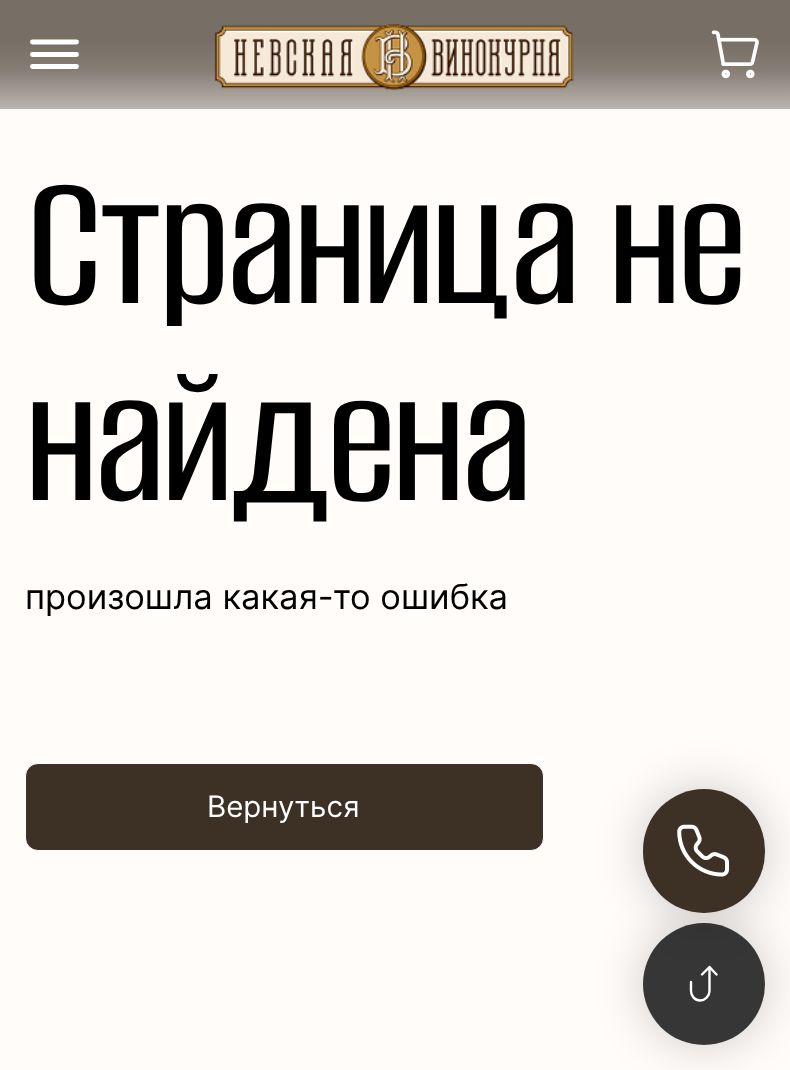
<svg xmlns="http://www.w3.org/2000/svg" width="790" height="1070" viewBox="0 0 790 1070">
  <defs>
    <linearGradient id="g1" gradientUnits="userSpaceOnUse" x1="395" y1="0" x2="395" y2="109"><stop offset="0.37" stop-color="#776e65"/><stop offset="0.64" stop-color="#857c74"/><stop offset="1" stop-color="#bbb5af"/></linearGradient>
  </defs>
  <rect width="100%" height="100%" fill="#fffcf9"/>
  <path d="M0 0h790v109H0z" fill="url(#g1)"/>
  <path d="M32.5 66.5H76.5M32.5 54.5H76.5M32.5 42H76.5" fill="none" stroke="#fff" stroke-width="4.9" stroke-linecap="round" stroke-linejoin="round"/>
  <image x="214" y="24" width="360" height="66" href="img/1.png"/>
  <image x="711" y="30" width="48" height="49" href="img/2.png"/>
  <rect x="25.5" y="763.5" width="518" height="87" rx="12.5" fill="#3d3126" stroke="#fff"/>
  <rect x="643" y="923" width="122" height="122" rx="61" fill="#00000033" filter="blur(24.5px)"/>
  <circle cx="704" cy="984" r="61" fill="#363636"/>
  <path d="M702 974.5L709.5 967L716.5 974.5M691 982V991C691 996 695 1000.5 700 1000.5C705 1000.5 709.5 996 709.5 991V967" fill="none" stroke="#fff" stroke-width="2.4" stroke-linecap="round" stroke-linejoin="round"/>
  <rect x="643" y="789" width="122" height="124" rx="61" fill="#00000033" filter="blur(24.5px)"/>
  <rect x="643" y="789" width="122" height="124" rx="61" fill="#3d3126"/>
  <image x="677" y="824" width="53" height="53" href="img/3.png"/>
  <g font-family="Alumni Sans" font-size="197.5" font-weight="500" letter-spacing="-4" fill="#000">
    <text x="25" y="303">Страница не</text>
    <text x="25" y="500">найдена</text>
  </g>
  <text x="25" y="609" font-family="Inter" font-size="34.5" fill="#000">произошла какая-то ошибка</text>
  <text x="207" y="817" font-family="Inter" font-size="29.5" fill="#fff">Вернуться</text>
</svg>
